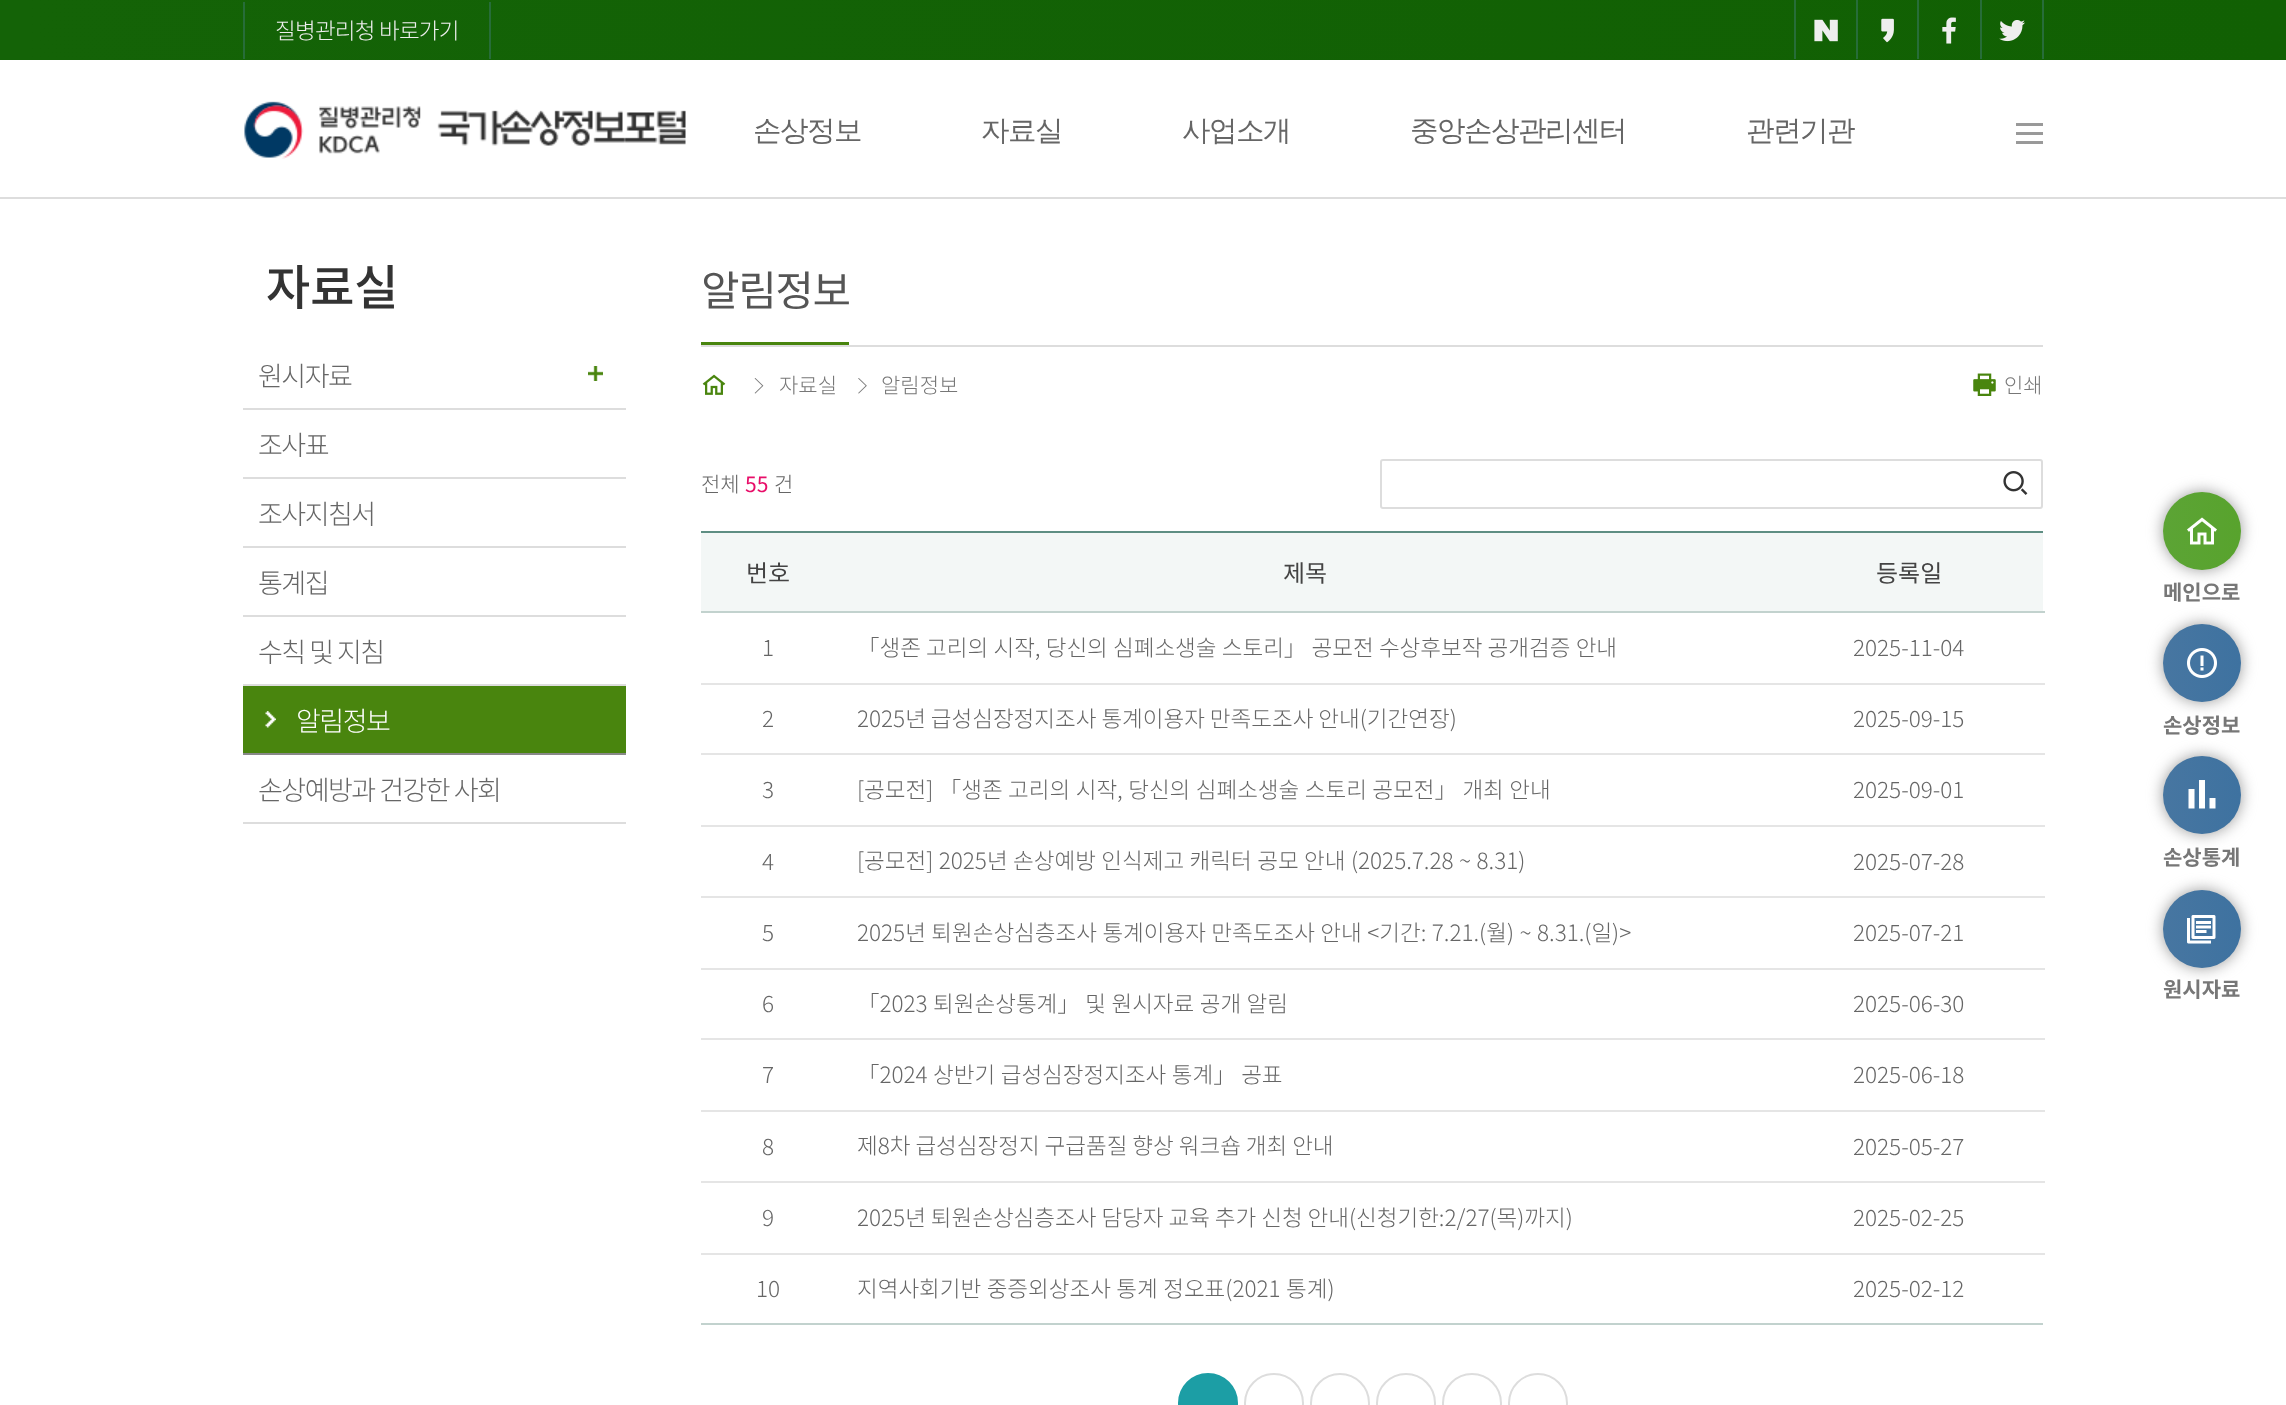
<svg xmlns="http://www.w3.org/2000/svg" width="2286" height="1405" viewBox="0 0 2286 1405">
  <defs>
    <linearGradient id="g1" gradientUnits="userSpaceOnUse" x1="0" y1="30" x2="2286" y2="30"><stop offset="0.01" stop-color="#146307"/><stop offset="1" stop-color="#116003"/></linearGradient>
    <linearGradient id="g2" gradientUnits="userSpaceOnUse" x1="2163" y1="531" x2="2241" y2="531"><stop offset="0.01" stop-color="#5ca435"/><stop offset="1" stop-color="#58a32d"/></linearGradient>
    <linearGradient id="g3" gradientUnits="userSpaceOnUse" x1="2163" y1="663" x2="2241" y2="663"><stop offset="0.01" stop-color="#4776a1"/><stop offset="1" stop-color="#3e72a0"/></linearGradient>
    <linearGradient id="g4" gradientUnits="userSpaceOnUse" x1="2163" y1="795" x2="2241" y2="795"><stop offset="0.01" stop-color="#4776a1"/><stop offset="1" stop-color="#3e72a0"/></linearGradient>
    <linearGradient id="g5" gradientUnits="userSpaceOnUse" x1="2163" y1="929" x2="2241" y2="929"><stop offset="0.01" stop-color="#4776a1"/><stop offset="1" stop-color="#3e72a0"/></linearGradient>
  </defs>
  <rect width="100%" height="100%" fill="#fff"/>
  <path d="M0 0h2286v60H0z" fill="url(#g1)"/>
  <path d="M489 2h2v57H489z" fill="#276d39"/>
  <path d="M243 2h2v57H243z" fill="#276d39"/>
  <path d="M1856 0h2v59H1856z" fill="#276d39"/>
  <path d="M1794 0h2v59H1794z" fill="#276d39"/>
  <image x="1814" y="19" width="24" height="23" href="img/1.png"/>
  <path d="M1917 0h2v59H1917z" fill="#276d39"/>
  <image x="1881" y="18" width="13" height="25" href="img/2.png"/>
  <path d="M1980 0h2v59H1980z" fill="#276d39"/>
  <image x="1942" y="17" width="14" height="27" href="img/3.png"/>
  <path d="M2042 0h2v59H2042z" fill="#276d39"/>
  <image x="1999" y="20" width="26" height="22" href="img/4.png"/>
  <path d="M0 197h2286v2H0z" fill="#ddd"/>
  <image x="244" y="101" width="442" height="58" href="img/5.png"/>
  <image x="2016" y="123" width="27" height="21" href="img/6.png"/>
  <path d="M243 408h383v2H243z" fill="#ddd"/>
  <image x="588" y="366" width="15" height="15" href="img/7.png"/>
  <path d="M243 477h383v2H243z" fill="#ddd"/>
  <path d="M243 546h383v2H243z" fill="#ddd"/>
  <path d="M243 615h383v2H243z" fill="#ddd"/>
  <path d="M243 684h383v2H243z" fill="#ddd"/>
  <path d="M243 686h383v67H243z" fill="#49850e"/>
  <image x="265" y="711" width="11" height="17" href="img/8.png"/>
  <path d="M243 753h383v2H243z" fill="#888"/>
  <path d="M243 822h383v2H243z" fill="#ddd"/>
  <path d="M701 345h1342v2H701z" fill="#ddd"/>
  <path d="M701 342h148v3H701z" fill="#49850e"/>
  <image x="702" y="374" width="24" height="21" href="img/9.png"/>
  <image x="754" y="378" width="10" height="16" href="img/10.png"/>
  <image x="858" y="378" width="9" height="16" href="img/11.png"/>
  <image x="1973" y="373" width="23" height="23" href="img/12.png"/>
  <rect x="1381" y="460" width="661" height="48" rx="2" fill="none" stroke="#ddd" stroke-width="2"/>
  <image x="2003" y="471" width="25" height="24" href="img/13.png"/>
  <path d="M701 531h1342v2H701z" fill="#5e8e83"/>
  <path d="M701 533h1342v78H701z" fill="#f3f7f6"/>
  <path d="M701 611h1344v2H701z" fill="#c2d2ce"/>
  <path d="M701 683h1344v2H701z" fill="#e5e5e5"/>
  <path d="M701 753h1344v2H701z" fill="#e5e5e5"/>
  <path d="M701 825h1344v2H701z" fill="#e5e5e5"/>
  <path d="M701 896h1344v2H701z" fill="#e5e5e5"/>
  <path d="M701 968h1344v2H701z" fill="#e5e5e5"/>
  <path d="M701 1038h1344v2H701z" fill="#e5e5e5"/>
  <path d="M701 1110h1344v2H701z" fill="#e5e5e5"/>
  <path d="M701 1181h1344v2H701z" fill="#e5e5e5"/>
  <path d="M701 1253h1344v2H701z" fill="#e5e5e5"/>
  <path d="M701 1323h1342v2H701z" fill="#c2d2ce"/>
  <circle cx="1208" cy="1403" r="29" fill="#1c9ea5" stroke="#1c9ea5" stroke-width="2"/>
  <circle cx="1274" cy="1403" r="29" fill="none" stroke="#ddd" stroke-width="2"/>
  <circle cx="1340" cy="1403" r="29" fill="none" stroke="#ddd" stroke-width="2"/>
  <circle cx="1406" cy="1403" r="29" fill="none" stroke="#ddd" stroke-width="2"/>
  <circle cx="1472" cy="1403" r="29" fill="none" stroke="#ddd" stroke-width="2"/>
  <circle cx="1538" cy="1403" r="29" fill="none" stroke="#ddd" stroke-width="2"/>
  <rect x="2163" y="492" width="78" height="78" rx="39" fill="#999" filter="blur(7.5px)"/>
  <circle cx="2202" cy="531" r="39" fill="url(#g2)"/>
  <image x="2187" y="517" width="30" height="28" href="img/14.png"/>
  <rect x="2163" y="624" width="78" height="78" rx="39" fill="#999" filter="blur(7.5px)"/>
  <circle cx="2202" cy="663" r="39" fill="url(#g3)"/>
  <image x="2187" y="648" width="30" height="30" href="img/15.png"/>
  <rect x="2163" y="756" width="78" height="78" rx="39" fill="#999" filter="blur(7.5px)"/>
  <circle cx="2202" cy="795" r="39" fill="url(#g4)"/>
  <image x="2188" y="780" width="28" height="29" href="img/16.png"/>
  <rect x="2163" y="890" width="78" height="78" rx="39" fill="#999" filter="blur(7.5px)"/>
  <circle cx="2202" cy="929" r="39" fill="url(#g5)"/>
  <image x="2187" y="915" width="29" height="29" href="img/17.png"/>
  <text x="275" y="39" font-family="Noto Sans CJK KR" font-size="22.5" font-weight="300" letter-spacing="-0.75" fill="#eee">질병관리청 바로가기</text>
  <g font-family="WenQuanYi Zen Hei" font-size="28.5" font-weight="500" letter-spacing="-1.5" fill="#666">
    <text x="753" y="140">손상정보</text>
    <text x="981" y="140">자료실</text>
    <text x="1182" y="140">사업소개</text>
    <text x="1410" y="140">중앙손상관리센터</text>
    <text x="1746" y="140">관련기관</text>
  </g>
  <text x="266" y="305" font-family="Noto Sans CJK KR" font-size="48" font-weight="500" fill="#333">자료실</text>
  <g font-family="Noto Sans CJK KR" font-size="27" font-weight="300" letter-spacing="-1.5" fill="#666">
    <text x="258" y="386">원시자료</text>
    <text x="258" y="455">조사표</text>
    <text x="258" y="524">조사지침서</text>
    <text x="258" y="593">통계집</text>
    <text x="258" y="662">수칙 및 지침</text>
  </g>
  <text x="296" y="731" font-family="Noto Sans CJK KR" font-size="27" font-weight="300" letter-spacing="-1.5" fill="#fff">알림정보</text>
  <text x="258" y="800" font-family="Noto Sans CJK KR" font-size="27" font-weight="300" letter-spacing="-1.5" fill="#666">손상예방과 건강한 사회</text>
  <text x="701" y="306" font-family="Noto Sans KR" font-size="42" letter-spacing="-1.5" fill="#555">알림정보</text>
  <g font-family="Noto Sans CJK KR" font-size="21" font-weight="300" fill="#777">
    <text x="779" y="393">자료실</text>
    <text x="881" y="393">알림정보</text>
    <text x="2004" y="393">인쇄</text>
  </g>
  <text x="701" y="492" font-family="Noto Sans CJK KR" font-size="21" font-weight="300" fill="#666">전체</text>
  <text x="745" y="492" font-family="Noto Sans KR" font-size="21" fill="#e80e69">55</text>
  <text x="774" y="492" font-family="Noto Sans CJK KR" font-size="21" font-weight="300" fill="#666">건</text>
  <g font-family="Noto Sans KR" font-size="24" fill="#444">
    <text x="746" y="582">번호</text>
    <text x="1283" y="582">제목</text>
    <text x="1876" y="582">등록일</text>
  </g>
  <g font-family="Noto Sans CJK KR" font-size="22.5" font-weight="300" fill="#666">
    <text x="762" y="656">1</text>
    <text x="857" y="656" word-spacing="0.25">「생존 고리의 시작, 당신의 심폐소생술 스토리」 공모전 수상후보작 공개검증 안내</text>
    <text x="1853" y="656">2025-11-04</text>
    <text x="762" y="727">2</text>
    <text x="857" y="727">2025년 급성심장정지조사 통계이용자 만족도조사 안내(기간연장)</text>
    <text x="1853" y="727">2025-09-15</text>
    <text x="762" y="798">3</text>
    <text x="857" y="798" word-spacing="0.5">[공모전] 「생존 고리의 시작, 당신의 심폐소생술 스토리 공모전」 개최 안내</text>
    <text x="1853" y="798">2025-09-01</text>
    <text x="762" y="870">4</text>
    <text x="857" y="869" word-spacing="0.5">[공모전] 2025년 손상예방 인식제고 캐릭터 공모 안내 (2025.7.28 ~ 8.31)</text>
    <text x="1853" y="870">2025-07-28</text>
    <text x="762" y="941">5</text>
    <text x="857" y="941" word-spacing="0.5">2025년 퇴원손상심층조사 통계이용자 만족도조사 안내 &lt;기간: 7.21.(월) ~ 8.31.(일)&gt;</text>
    <text x="1853" y="941">2025-07-21</text>
    <text x="762" y="1012">6</text>
    <text x="857" y="1012" word-spacing="0.5">「2023 퇴원손상통계」 및 원시자료 공개 알림</text>
    <text x="1853" y="1012">2025-06-30</text>
    <text x="762" y="1083">7</text>
    <text x="857" y="1083" word-spacing="0.5">「2024 상반기 급성심장정지조사 통계」 공표</text>
    <text x="1853" y="1083">2025-06-18</text>
    <text x="762" y="1155">8</text>
    <text x="857" y="1154">제8차 급성심장정지 구급품질 향상 워크숍 개최 안내</text>
    <text x="1853" y="1155">2025-05-27</text>
    <text x="762" y="1226">9</text>
    <text x="857" y="1226">2025년 퇴원손상심층조사 담당자 교육 추가 신청 안내(신청기한:2/27(목)까지)</text>
    <text x="1853" y="1226">2025-02-25</text>
    <text x="756" y="1297">10</text>
    <text x="857" y="1297" word-spacing="0.5">지역사회기반 중증외상조사 통계 정오표(2021 통계)</text>
    <text x="1853" y="1297">2025-02-12</text>
  </g>
  <g font-family="Noto Sans CJK KR" font-size="21" font-weight="bold" fill="#777">
    <text x="2163" y="600">메인으로</text>
    <text x="2163" y="733">손상정보</text>
    <text x="2163" y="865">손상통계</text>
    <text x="2163" y="997">원시자료</text>
  </g>
</svg>
